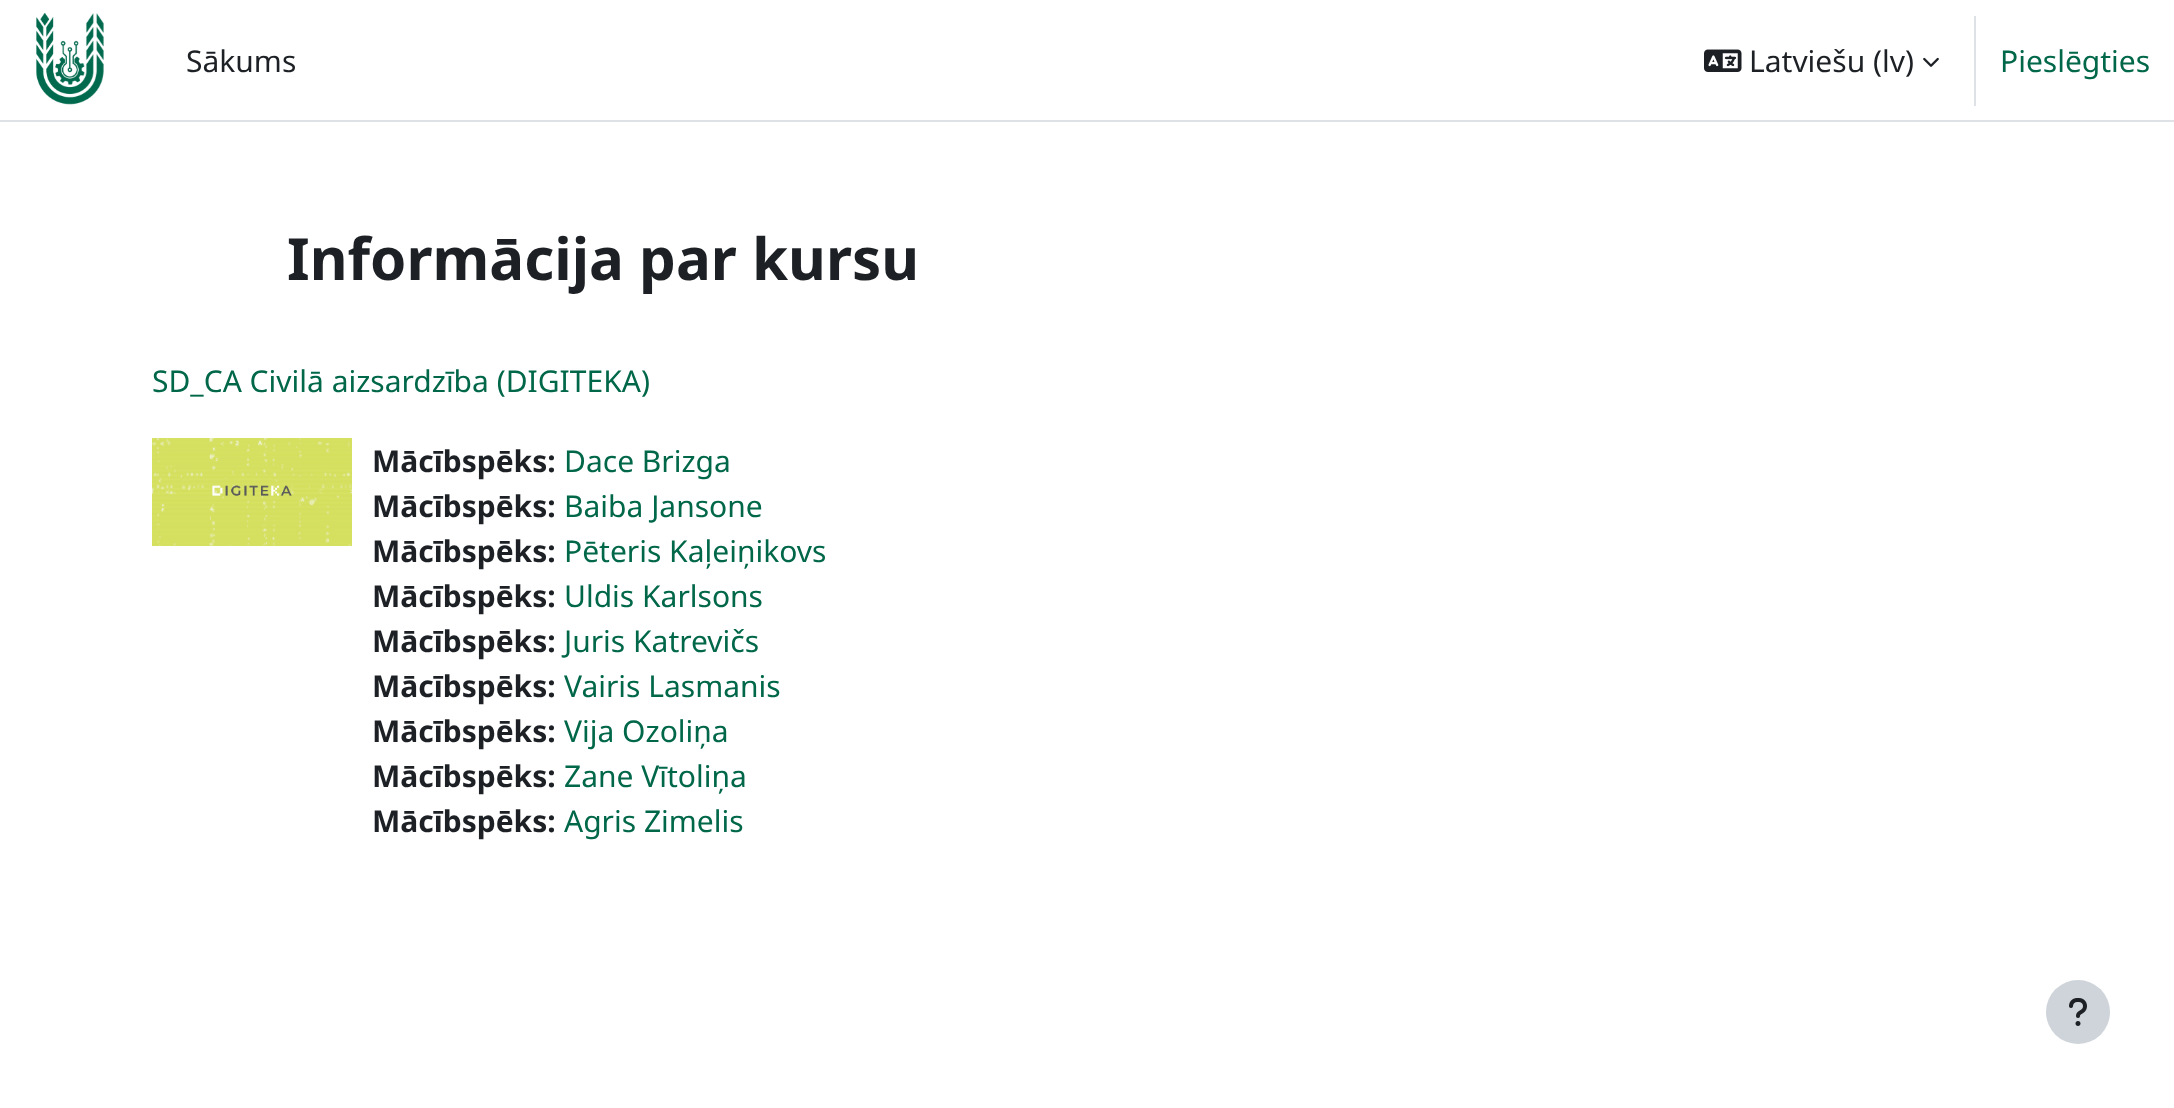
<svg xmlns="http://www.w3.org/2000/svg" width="2174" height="1108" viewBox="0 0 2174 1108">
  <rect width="100%" height="100%" fill="#fff"/>
  <path d="M0 120h2174v2H0z" fill="#dee2e6"/>
  <image x="36" y="13" width="68" height="92" href="img/1.png"/>
  <image x="1704" y="49" width="38" height="23" href="img/2.png"/>
  <image x="1923" y="57" width="16" height="10" href="img/3.png"/>
  <path d="M1974 16h2v90H1974z" fill="#dee2e6"/>
  <image x="152" y="438" width="200" height="108" href="img/4.png"/>
  <circle cx="2078" cy="1012" r="32" fill="#ced4da"/>
  <image x="2069" y="998" width="18" height="28" href="img/5.png"/>
  <g font-family="Noto Sans" font-size="30" fill="#1d2125">
    <text x="186" y="72">Sākums</text>
    <text x="1749" y="72">Latviešu (lv)</text>
  </g>
  <text x="2000" y="72" font-family="Noto Sans" font-size="30" fill="#006749">Pieslēgties</text>
  <text x="287" y="280" font-family="Noto Sans" font-size="58.25" font-weight="bold" fill="#1d2125">Informācija par kursu</text>
  <text x="152" y="392" font-family="Noto Sans" font-size="30" fill="#006749">SD_CA Civilā aizsardzība (DIGITEKA)</text>
  <text x="372" y="472" font-family="Noto Sans" font-size="30" font-weight="bold" fill="#1d2125">Mācībspēks:</text>
  <text x="564" y="472" font-family="Noto Sans" font-size="30" fill="#006749">Dace Brizga</text>
  <text x="372" y="517" font-family="Noto Sans" font-size="30" font-weight="bold" fill="#1d2125">Mācībspēks:</text>
  <text x="564" y="517" font-family="Noto Sans" font-size="30" fill="#006749">Baiba Jansone</text>
  <text x="372" y="562" font-family="Noto Sans" font-size="30" font-weight="bold" fill="#1d2125">Mācībspēks:</text>
  <text x="564" y="562" font-family="Noto Sans" font-size="30" fill="#006749">Pēteris Kaļeiņikovs</text>
  <text x="372" y="607" font-family="Noto Sans" font-size="30" font-weight="bold" fill="#1d2125">Mācībspēks:</text>
  <text x="564" y="607" font-family="Noto Sans" font-size="30" fill="#006749">Uldis Karlsons</text>
  <text x="372" y="652" font-family="Noto Sans" font-size="30" font-weight="bold" fill="#1d2125">Mācībspēks:</text>
  <text x="564" y="652" font-family="Noto Sans" font-size="30" fill="#006749">Juris Katrevičs</text>
  <text x="372" y="697" font-family="Noto Sans" font-size="30" font-weight="bold" fill="#1d2125">Mācībspēks:</text>
  <text x="564" y="697" font-family="Noto Sans" font-size="30" fill="#006749">Vairis Lasmanis</text>
  <text x="372" y="742" font-family="Noto Sans" font-size="30" font-weight="bold" fill="#1d2125">Mācībspēks:</text>
  <text x="564" y="742" font-family="Noto Sans" font-size="30" fill="#006749">Vija Ozoliņa</text>
  <text x="372" y="787" font-family="Noto Sans" font-size="30" font-weight="bold" fill="#1d2125">Mācībspēks:</text>
  <text x="564" y="787" font-family="Noto Sans" font-size="30" fill="#006749">Zane Vītoliņa</text>
  <text x="372" y="832" font-family="Noto Sans" font-size="30" font-weight="bold" fill="#1d2125">Mācībspēks:</text>
  <text x="564" y="832" font-family="Noto Sans" font-size="30" fill="#006749">Agris Zimelis</text>
</svg>
